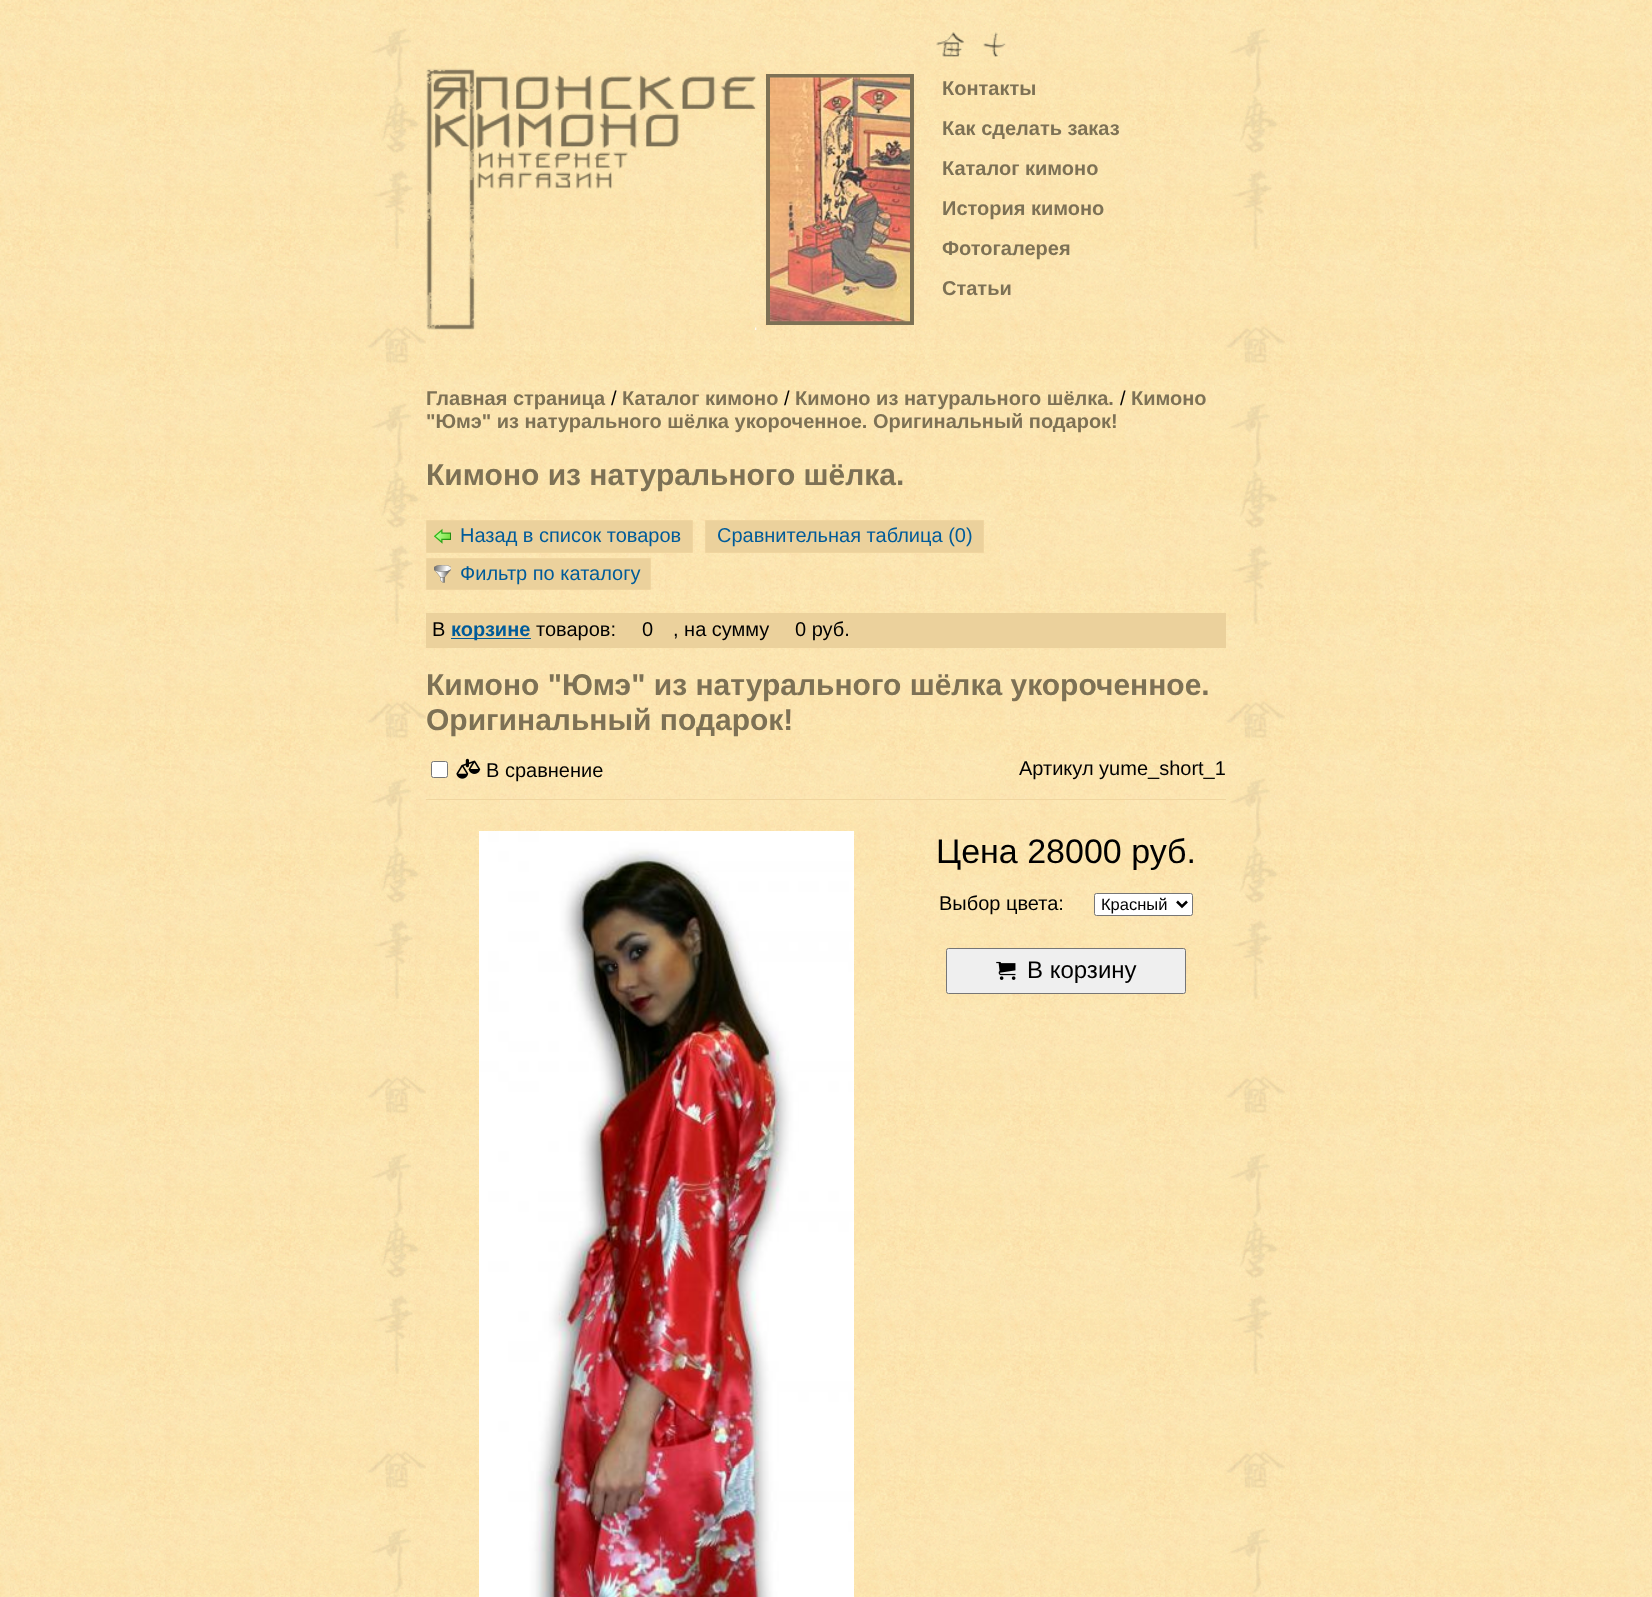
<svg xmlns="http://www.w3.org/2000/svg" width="1652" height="1597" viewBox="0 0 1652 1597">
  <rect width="100%" height="100%" fill="#fff"/>
  <image x="0" y="0" width="1652" height="1597" href="img/1.png"/>
  <image x="367" y="28" width="59" height="1569" href="img/2.png"/>
  <image x="936" y="32" width="28" height="25" href="img/3.png"/>
  <image x="983" y="32" width="23" height="25" href="img/4.png"/>
  <image x="426" y="68" width="331" height="262" href="img/5.png"/>
  <path d="M768 76h144v247H768z" fill="none" stroke="#7d7155" stroke-width="4"/>
  <image x="770" y="77" width="140" height="245" href="img/6.png"/>
  <path d="M427 521h265v31H427z" fill="#ebd19c"/>
  <image x="434" y="528" width="17" height="16" href="img/7.png"/>
  <path d="M426.5 520.5h266v32H426.5z" fill="none" stroke="#f0d59f"/>
  <path d="M705.5 520.5h278v32H705.5z" fill="#ebd19c" stroke="#f0d59f"/>
  <path d="M427 559h223v30H427z" fill="#ebd19c"/>
  <image x="434" y="565" width="17" height="18" href="img/8.png"/>
  <path d="M426.5 558.5h224v31H426.5z" fill="none" stroke="#f0d59f"/>
  <path d="M426 613h800v35H426z" fill="#ebd19c"/>
  <path d="M451 638h80v1H451z" fill="#005b99"/>
  <path d="M426 799h800v1H426z" fill="#f0d59f"/>
  <rect x="431.5" y="761.5" width="16" height="16" rx="2" fill="#fff" stroke="#767676"/>
  <image x="456" y="758" width="25" height="21" href="img/9.png"/>
  <image x="479" y="831" width="375" height="766" href="img/10.png"/>
  <rect x="1094.5" y="893.5" width="98" height="22" rx="2" fill="#fff" stroke="#767676"/>
  <path d="M1177 901.5L1182 906.5L1187 901.5" fill="none" stroke="#000" stroke-width="2.5"/>
  <rect x="946.5" y="948.5" width="239" height="45" rx="2" fill="#efefef" stroke="#767676"/>
  <image x="996" y="961" width="20" height="19" href="img/11.png"/>
  <image x="1226" y="28" width="59" height="1569" href="img/12.png"/>
  <g font-family="Liberation Sans" font-size="20" font-weight="bold" fill="#7d7155">
    <text x="942" y="95">Контакты</text>
    <text x="942" y="135">Как сделать заказ</text>
    <text x="942" y="175">Каталог кимоно</text>
    <text x="942" y="215">История кимоно</text>
    <text x="942" y="255">Фотогалерея</text>
    <text x="942" y="295">Статьи</text>
    <text x="426" y="405">Главная страница</text>
  </g>
  <text x="611" y="405" font-family="Liberation Sans" font-size="20" fill="#000">/</text>
  <text x="622" y="405" font-family="Liberation Sans" font-size="20" font-weight="bold" fill="#7d7155">Каталог кимоно</text>
  <text x="784" y="405" font-family="Liberation Sans" font-size="20" fill="#000">/</text>
  <text x="795" y="405" font-family="Liberation Sans" font-size="20" font-weight="bold" fill="#7d7155">Кимоно из натурального шёлка.</text>
  <text x="1120" y="405" font-family="Liberation Sans" font-size="20" fill="#000">/</text>
  <g font-family="Liberation Sans" font-size="20" font-weight="bold" fill="#7d7155">
    <text x="1131" y="405">Кимоно</text>
    <text x="426" y="428">"Юмэ" из натурального шёлка укороченное. Оригинальный подарок!</text>
  </g>
  <text x="426" y="485" font-family="Liberation Sans" font-size="30" font-weight="bold" fill="#7d7155">Кимоно из натурального шёлка.</text>
  <g font-family="Liberation Sans" font-size="20" fill="#005b99">
    <text x="460" y="542">Назад в список товаров</text>
    <text x="717" y="542">Сравнительная таблица (0)</text>
    <text x="460" y="580">Фильтр по каталогу</text>
  </g>
  <text x="432" y="636" font-family="Liberation Sans" font-size="20" fill="#000">В</text>
  <text x="451" y="636" font-family="Liberation Sans" font-size="20" font-weight="bold" fill="#005b99">корзине</text>
  <g font-family="Liberation Sans" font-size="20" fill="#000">
    <text x="536" y="636">товаров:</text>
    <text x="642" y="636">0</text>
    <text x="673" y="636">, на сумму</text>
    <text x="795" y="636">0 руб.</text>
  </g>
  <g font-family="Liberation Sans" font-size="30" font-weight="bold" fill="#7d7155">
    <text x="426" y="695">Кимоно "Юмэ" из натурального шёлка укороченное.</text>
    <text x="426" y="730">Оригинальный подарок!</text>
  </g>
  <g font-family="Liberation Sans" font-size="20" fill="#000">
    <text x="486" y="777">В сравнение</text>
    <text x="1019" y="775">Артикул yume_short_1</text>
  </g>
  <text x="936" y="863" font-family="Liberation Sans" font-size="34" fill="#000">Цена 28000 руб.</text>
  <text x="939" y="910" font-family="Liberation Sans" font-size="20" fill="#000">Выбор цвета:</text>
  <text x="1101" y="910" font-family="Liberation Sans" font-size="16.5" fill="#000">Красный</text>
  <text x="1027" y="978" font-family="Liberation Sans" font-size="24" fill="#000">В корзину</text>
</svg>
